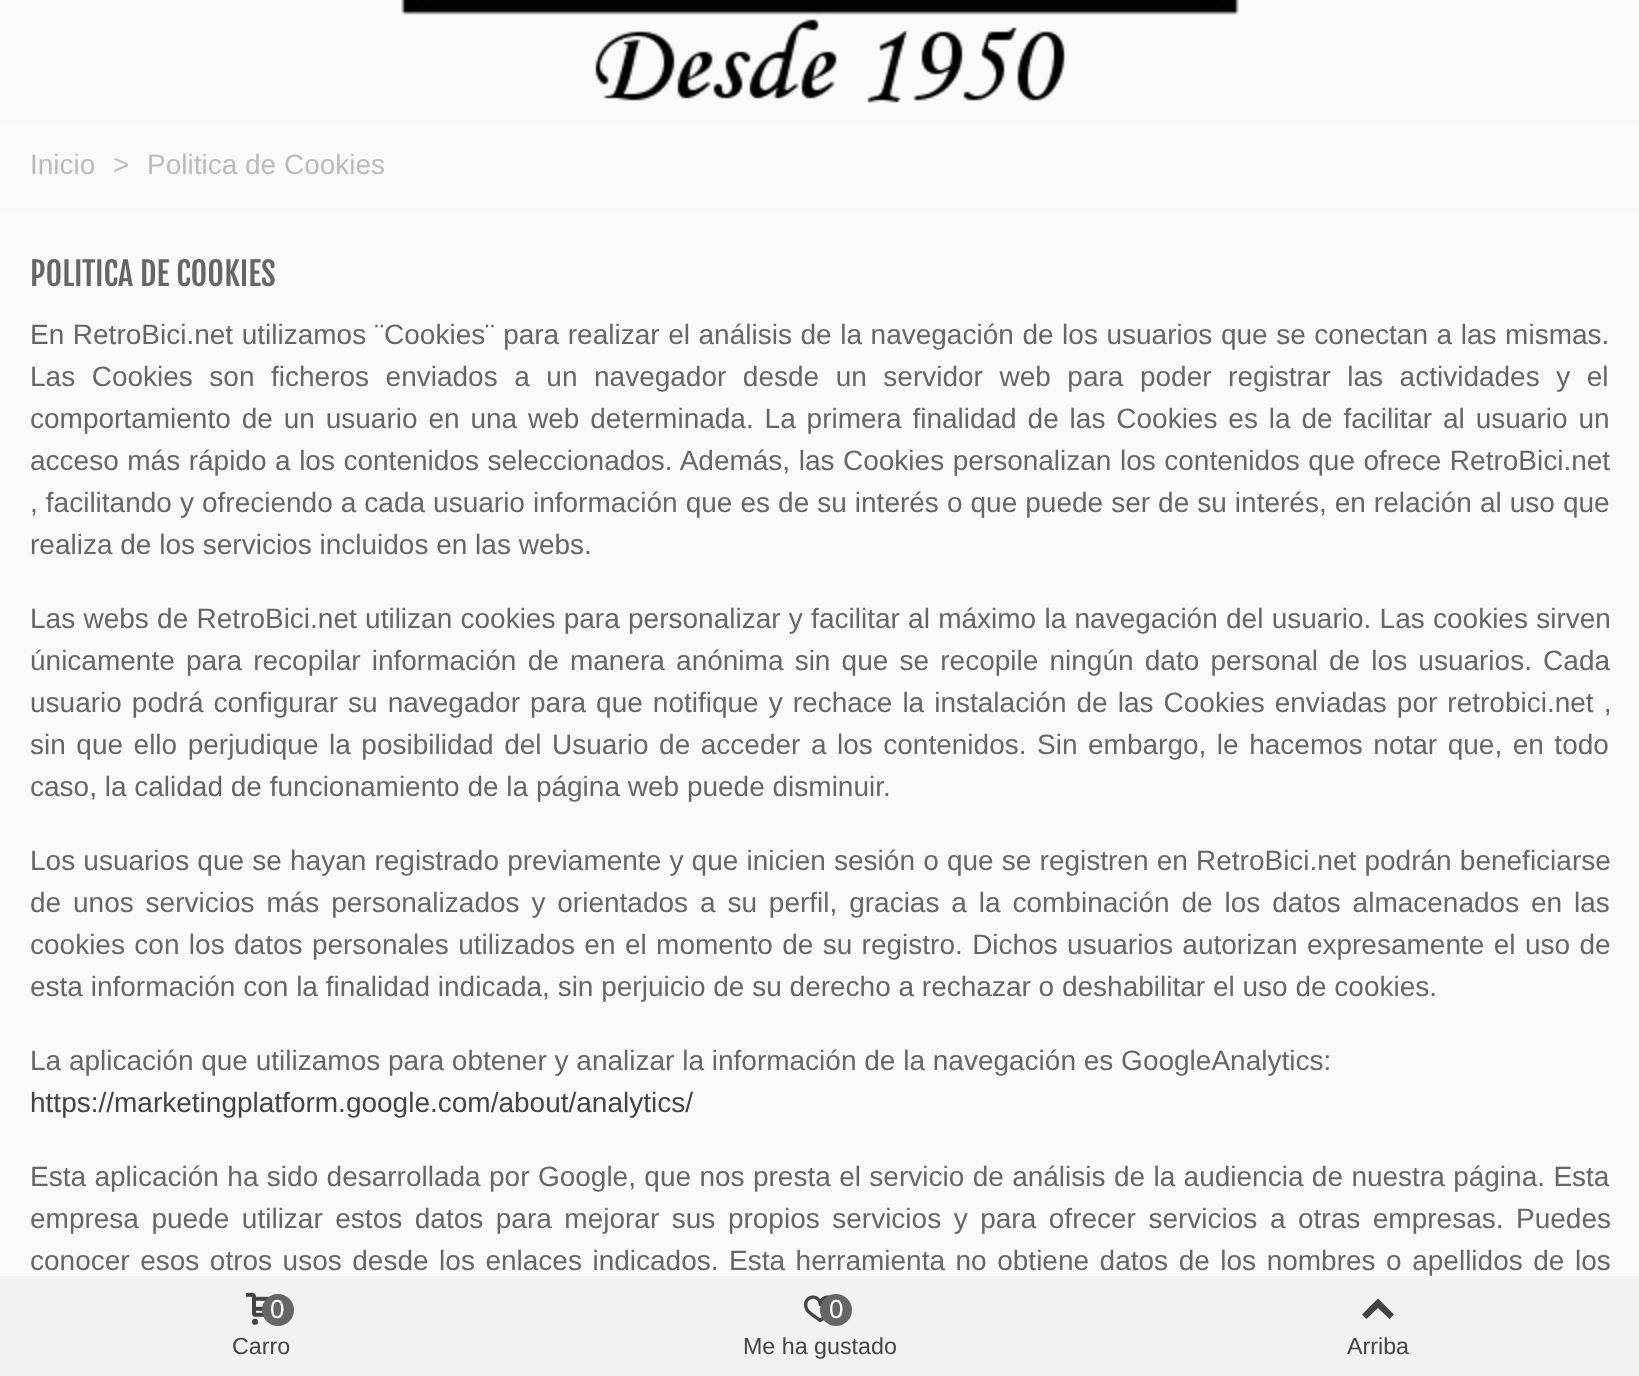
<svg xmlns="http://www.w3.org/2000/svg" width="1639" height="1376" viewBox="0 0 1639 1376">
  <rect width="100%" height="100%" fill="#f9fafb"/>
  <image x="401" y="0" width="838" height="103" href="img/1.png"/>
  <path d="M0 120h1639v2H0z" fill="#f3f3f3"/>
  <path d="M0 208h1639v2H0z" fill="#f3f3f3"/>
  <path d="M0 1276h1639v100H0z" fill="#f2f2f2"/>
  <image x="246" y="1292" width="27" height="33" href="img/2.png"/>
  <circle cx="278" cy="1310" r="16" fill="#666"/>
  <image x="804" y="1295" width="27" height="28" href="img/3.png"/>
  <circle cx="836" cy="1310" r="16" fill="#666"/>
  <path d="M1362 1314.5L1378 1298.5L1394 1314.5L1389.5 1319L1378 1308L1366.5 1319Z" fill="#444"/>
  <g font-family="Liberation Sans" font-size="28" fill="#bbb">
    <text x="30" y="174">Inicio</text>
    <text x="113" y="174">&gt;</text>
    <text x="147" y="174">Politica de Cookies</text>
  </g>
  <text x="30" y="286" font-family="Fjalla One" font-size="32" fill="#666">POLITICA DE COOKIES</text>
  <g font-family="Liberation Sans" font-size="28" fill="#666">
    <text x="30" y="344" word-spacing="0.8">En RetroBici.net utilizamos ¨Cookies¨ para realizar el análisis de la navegación de los usuarios que se conectan a las mismas.</text>
    <text x="30" y="386" word-spacing="8.75">Las Cookies son ficheros enviados a un navegador desde un servidor web para poder registrar las actividades y el</text>
    <text x="30" y="428" word-spacing="3.1">comportamiento de un usuario en una web determinada. La primera finalidad de las Cookies es la de facilitar al usuario un</text>
    <text x="30" y="470" word-spacing="0.75">acceso más rápido a los contenidos seleccionados. Además, las Cookies personalizan los contenidos que ofrece RetroBici.net</text>
    <text x="30" y="512" word-spacing="0.25">, facilitando y ofreciendo a cada usuario información que es de su interés o que puede ser de su interés, en relación al uso que</text>
    <text x="30" y="554">realiza de los servicios incluidos en las webs.</text>
    <text x="30" y="628" word-spacing="0.5">Las webs de RetroBici.net utilizan cookies para personalizar y facilitar al máximo la navegación del usuario. Las cookies sirven</text>
    <text x="30" y="670" word-spacing="3.4">únicamente para recopilar información de manera anónima sin que se recopile ningún dato personal de los usuarios. Cada</text>
    <text x="30" y="712" word-spacing="2.25">usuario podrá configurar su navegador para que notifique y rechace la instalación de las Cookies enviadas por retrobici.net ,</text>
    <text x="30" y="754" word-spacing="2.75">sin que ello perjudique la posibilidad del Usuario de acceder a los contenidos. Sin embargo, le hacemos notar que, en todo</text>
    <text x="30" y="796">caso, la calidad de funcionamiento de la página web puede disminuir.</text>
    <text x="30" y="870" word-spacing="0.4">Los usuarios que se hayan registrado previamente y que inicien sesión o que se registren en RetroBici.net podrán beneficiarse</text>
    <text x="30" y="912" word-spacing="4.1">de unos servicios más personalizados y orientados a su perfil, gracias a la combinación de los datos almacenados en las</text>
    <text x="30" y="954" word-spacing="1.6">cookies con los datos personales utilizados en el momento de su registro. Dichos usuarios autorizan expresamente el uso de</text>
    <text x="30" y="996">esta información con la finalidad indicada, sin perjuicio de su derecho a rechazar o deshabilitar el uso de cookies.</text>
    <text x="30" y="1070">La aplicación que utilizamos para obtener y analizar la información de la navegación es GoogleAnalytics:</text>
  </g>
  <text x="30" y="1112" font-family="Liberation Sans" font-size="28" fill="#444">https://marketingplatform.google.com/about/analytics/</text>
  <g font-family="Liberation Sans" font-size="28" fill="#666">
    <text x="30" y="1186" word-spacing="0.6">Esta aplicación ha sido desarrollada por Google, que nos presta el servicio de análisis de la audiencia de nuestra página. Esta</text>
    <text x="30" y="1228" word-spacing="4.75">empresa puede utilizar estos datos para mejorar sus propios servicios y para ofrecer servicios a otras empresas. Puedes</text>
    <text x="30" y="1270" word-spacing="2.75">conocer esos otros usos desde los enlaces indicados. Esta herramienta no obtiene datos de los nombres o apellidos de los</text>
  </g>
  <text x="270" y="1318" font-family="Liberation Sans" font-size="26" fill="#fff">0</text>
  <text x="232" y="1354" font-family="Liberation Sans" font-size="23.25" fill="#444">Carro</text>
  <text x="829" y="1318" font-family="Liberation Sans" font-size="26" fill="#fff">0</text>
  <g font-family="Liberation Sans" font-size="23.25" fill="#444">
    <text x="743" y="1354">Me ha gustado</text>
    <text x="1347" y="1354">Arriba</text>
  </g>
</svg>
